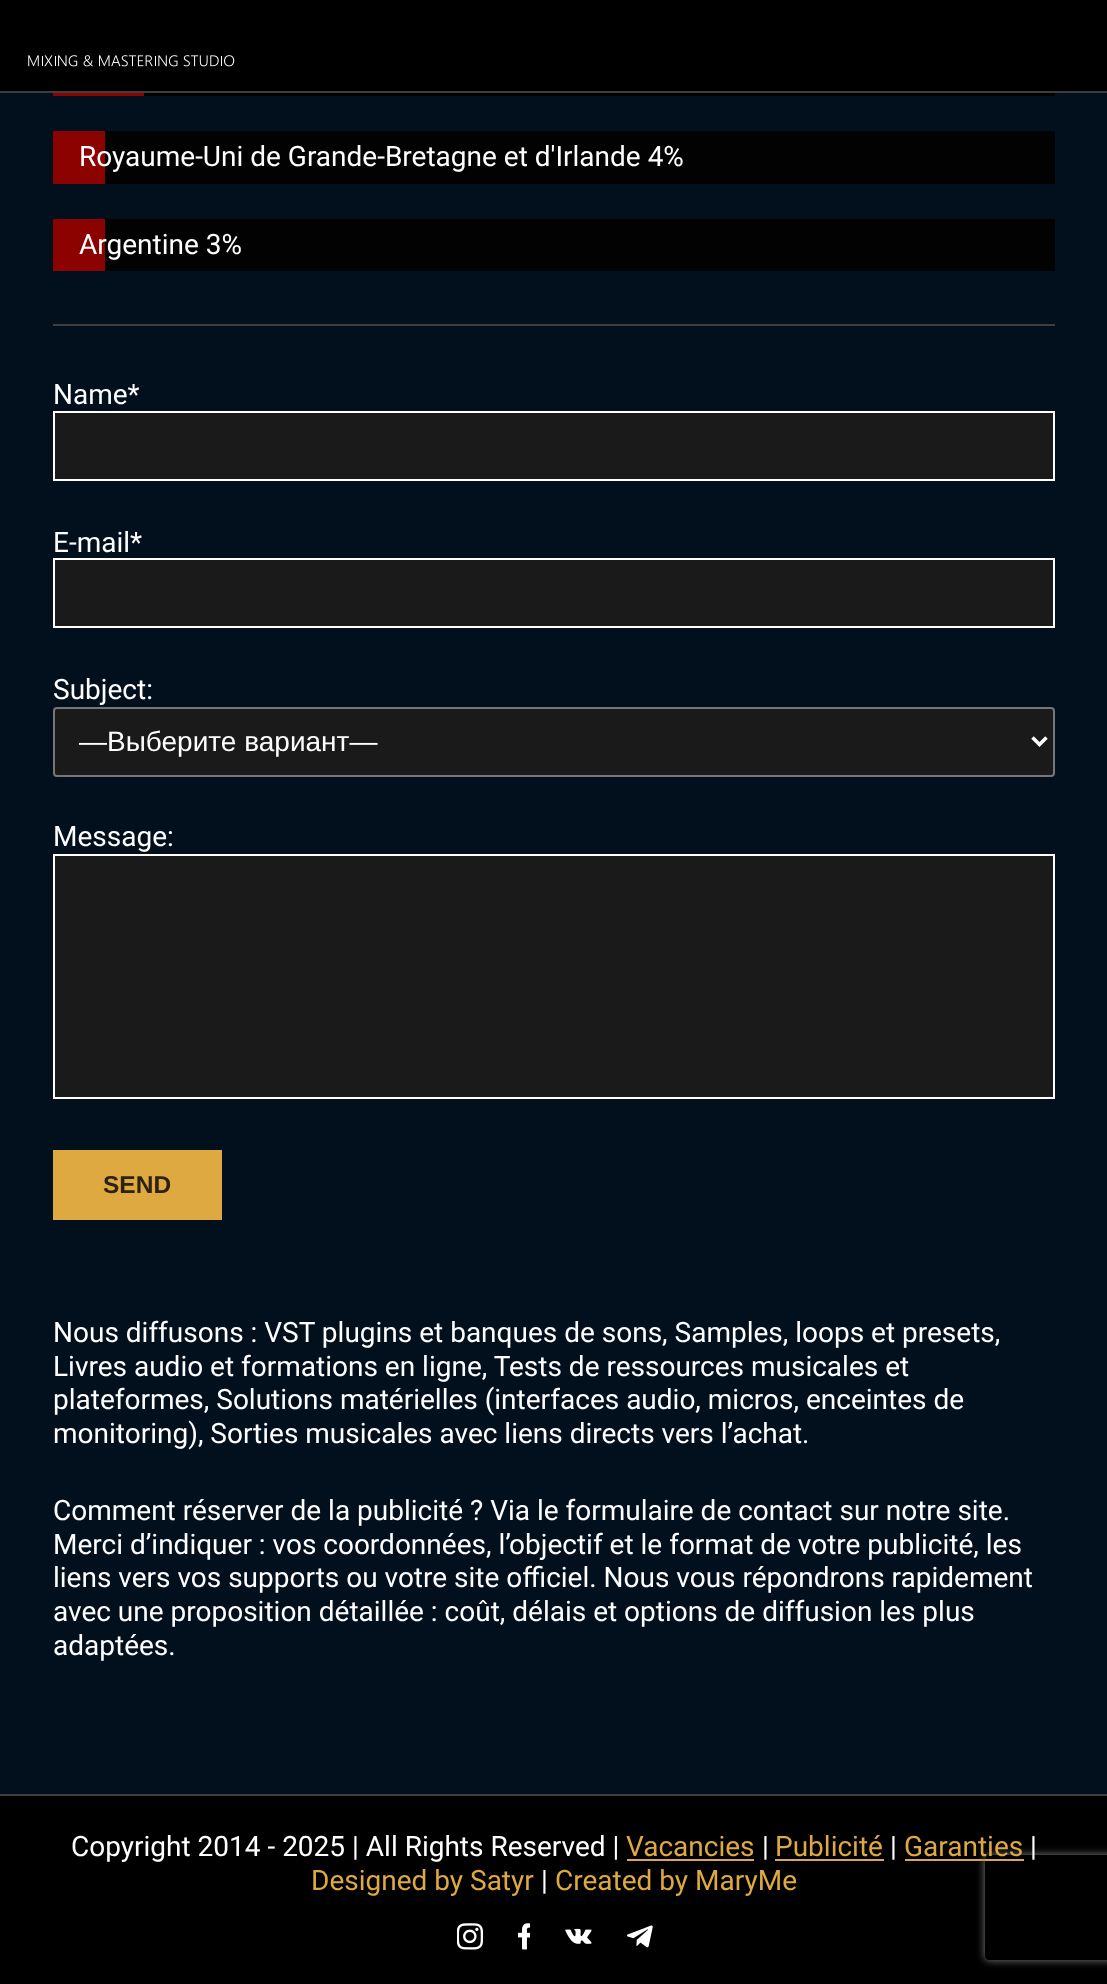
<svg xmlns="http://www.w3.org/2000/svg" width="1107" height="1984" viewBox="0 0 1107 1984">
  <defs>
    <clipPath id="clip1"><path d="M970 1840H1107V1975H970ZM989 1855H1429C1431 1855 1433 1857 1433 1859V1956C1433 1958 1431 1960 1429 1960H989C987 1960 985 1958 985 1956V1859C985 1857 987 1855 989 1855Z" clip-rule="evenodd"/></clipPath>
  </defs>
  <rect width="100%" height="100%" fill="#020f1d"/>
  <path d="M0 0h1107v91H0z" fill="#000"/>
  <path d="M0 91h1107v2H0z" fill="#3e3e3e"/>
  <image x="28" y="55" width="207" height="12" href="img/1.png"/>
  <path d="M144 93h911v3H144z" fill="#020202"/>
  <path d="M53 93h91v3H53z" fill="#8c0200"/>
  <path d="M105 131h950v53H105z" fill="#020202"/>
  <path d="M53 131h52v53H53z" fill="#8c0200"/>
  <path d="M105 219h950v52H105z" fill="#020202"/>
  <path d="M53 219h52v52H53z" fill="#8c0200"/>
  <path d="M53 324h1002v2H53z" fill="#3e3e3e"/>
  <path d="M54 412h1000v68H54z" fill="#1b1a1a" stroke="#fff" stroke-width="2"/>
  <path d="M54 559h1000v68H54z" fill="#1b1a1a" stroke="#fff" stroke-width="2"/>
  <rect x="54" y="708" width="1000" height="68" rx="3" fill="#1b1a1a" stroke="#767676" stroke-width="2"/>
  <path d="M1032.5 737.5L1039.5 744.5L1046.5 737.5" fill="none" stroke="#fff" stroke-width="3.5"/>
  <path d="M54 855h1000v243H54z" fill="#1b1a1a" stroke="#fff" stroke-width="2"/>
  <path d="M53 1150h169v70H53z" fill="#dfa941"/>
  <path d="M0 1796h1107v188H0z" fill="#000"/>
  <path d="M0 1794h1107v2H0z" fill="#3e3e3e"/>
  <path d="M627 1859h127v2H627z" fill="#dfa941"/>
  <path d="M775 1859h109v2H775z" fill="#dfa941"/>
  <path d="M905 1859h119v2H905z" fill="#dfa941"/>
  <image x="457" y="1923" width="26" height="27" href="img/2.png"/>
  <image x="518" y="1923" width="12" height="27" href="img/3.png"/>
  <image x="565" y="1928" width="27" height="16" href="img/4.png"/>
  <image x="627" y="1925" width="26" height="23" href="img/5.png"/>
  <g clip-path="url(#clip1)">
    <rect x="985" y="1855" width="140" height="105" rx="4" fill="#808080" filter="blur(4.5px)"/>
  </g>
  <g font-family="Roboto" font-size="28" fill="#fff">
    <text x="79" y="166">Royaume-Uni de Grande-Bretagne et d'Irlande 4%</text>
    <text x="79" y="254">Argentine 3%</text>
    <text x="53" y="404">Name*</text>
    <text x="53" y="552">E-mail*</text>
    <text x="53" y="699">Subject:</text>
  </g>
  <text x="79" y="751" font-family="Liberation Sans" font-size="28" fill="#fff">—Выберите вариант—</text>
  <text x="53" y="846" font-family="Roboto" font-size="28" fill="#fff">Message:</text>
  <text x="103" y="1193" font-family="Liberation Sans" font-size="24.5" font-weight="bold" fill="#2d220d">SEND</text>
  <g font-family="Roboto" font-size="28" fill="#fff">
    <text x="53" y="1342">Nous diffusons : VST plugins et banques de sons, Samples, loops et presets,</text>
    <text x="53" y="1376">Livres audio et formations en ligne, Tests de ressources musicales et</text>
    <text x="53" y="1409">plateformes, Solutions matérielles (interfaces audio, micros, enceintes de</text>
    <text x="53" y="1443">monitoring), Sorties musicales avec liens directs vers l’achat.</text>
    <text x="53" y="1520">Comment réserver de la publicité ? Via le formulaire de contact sur notre site.</text>
    <text x="53" y="1554">Merci d’indiquer : vos coordonnées, l’objectif et le format de votre publicité, les</text>
    <text x="53" y="1587">liens vers vos supports ou votre site officiel. Nous vous répondrons rapidement</text>
    <text x="53" y="1621">avec une proposition détaillée : coût, délais et options de diffusion les plus</text>
    <text x="53" y="1655">adaptées.</text>
    <text x="71" y="1856">Copyright 2014 - 2025 | All Rights Reserved |</text>
  </g>
  <text x="626" y="1856" font-family="Roboto" font-size="28" fill="#dfa941">Vacancies</text>
  <text x="762" y="1856" font-family="Roboto" font-size="28" fill="#fff">|</text>
  <text x="775" y="1856" font-family="Roboto" font-size="28" fill="#dfa941">Publicité</text>
  <text x="890" y="1856" font-family="Roboto" font-size="28" fill="#fff">|</text>
  <text x="904" y="1856" font-family="Roboto" font-size="28" fill="#dfa941">Garanties</text>
  <text x="1030" y="1856" font-family="Roboto" font-size="28" fill="#fff">|</text>
  <text x="311" y="1890" font-family="Roboto" font-size="28" fill="#dfa941">Designed by Satyr</text>
  <text x="541" y="1890" font-family="Roboto" font-size="28" fill="#fff">|</text>
  <text x="555" y="1890" font-family="Roboto" font-size="28" fill="#dfa941">Created by MaryMe</text>
</svg>
